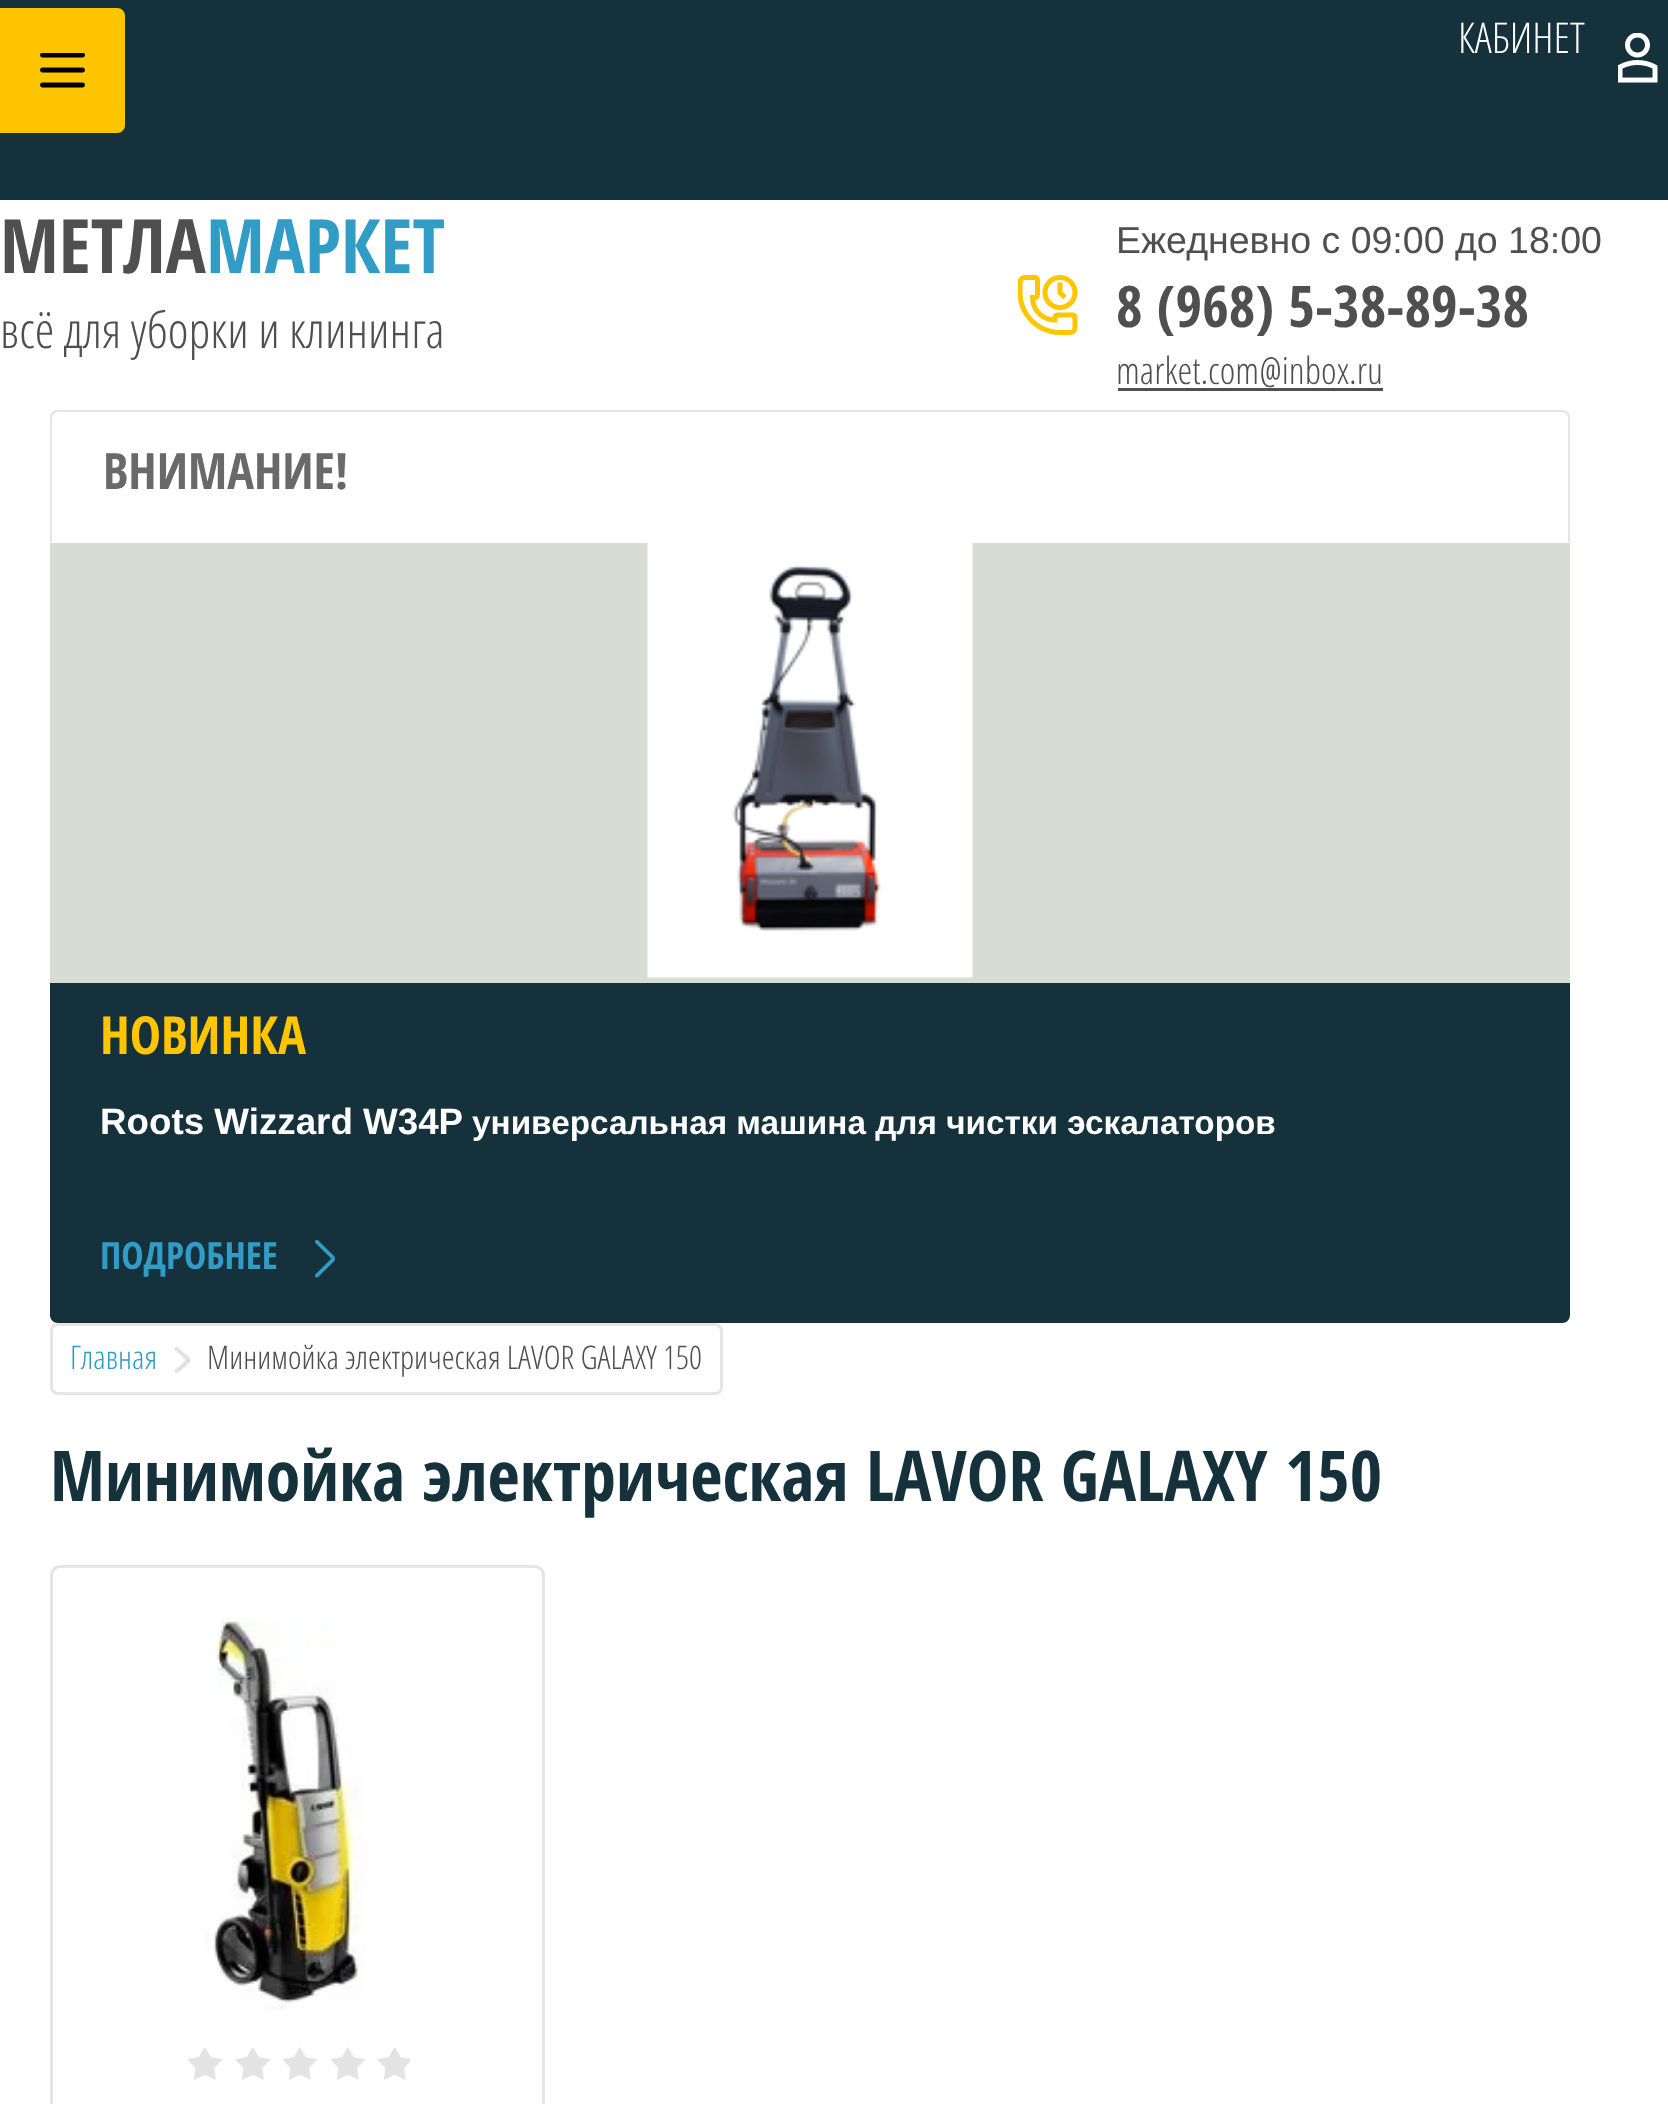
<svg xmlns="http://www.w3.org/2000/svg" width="1668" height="2104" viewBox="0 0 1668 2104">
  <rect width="100%" height="100%" fill="#fff"/>
  <path d="M0 0h1668v200H0z" fill="#15313c"/>
  <path d="M0 8H117C121.5 8 125 11.5 125 16V125C125 129.5 121.5 133 117 133H0Z" fill="#ffc600"/>
  <image x="40" y="53" width="45" height="35" href="img/1.png"/>
  <image x="1618" y="33" width="40" height="50" href="img/2.png"/>
  <image x="1018" y="275" width="60" height="60" href="img/3.png"/>
  <path d="M1118 388h265v3H1118z" fill="#504f4f"/>
  <path d="M58 410H1562C1567 410 1570 413 1570 418V542H50V418C50 413 53 410 58 410ZM58 412H1562C1565 412 1568 415 1568 418V542H52V418C52 415 55 412 58 412Z" fill="#e5e5e5" fill-rule="evenodd"/>
  <path d="M50 543h1520v440H50z" fill="#d9dcd2"/>
  <image x="647" y="543" width="326" height="435" href="img/4.png"/>
  <path d="M50 983H1570V1315C1570 1319.5 1566.5 1323 1562 1323H58C53.5 1323 50 1319.5 50 1315Z" fill="#15313c"/>
  <image x="315" y="1240" width="20" height="38" href="img/5.png"/>
  <rect x="51.5" y="1324.5" width="670" height="69" rx="6.5" fill="none" stroke="#e5e5e5" stroke-width="3"/>
  <image x="175" y="1347" width="15" height="26" href="img/6.png"/>
  <rect x="51.5" y="1566.5" width="492" height="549" rx="8.5" fill="none" stroke="#e5e5e5" stroke-width="3"/>
  <image x="204" y="1617" width="161" height="393" href="img/7.png"/>
  <image x="187" y="2047" width="223" height="33" href="img/8.png"/>
  <text x="1458" y="53" font-family="Open Sans" font-size="42.5" font-weight="300" fill="#fff">КАБИНЕТ</text>
  <text x="0" y="273" font-family="Open Sans Condensed" font-size="75" font-weight="bold" fill="#504f4f">МЕТЛА</text>
  <text x="206" y="273" font-family="Open Sans Condensed" font-size="75" font-weight="bold" fill="#319cc6">МАРКЕТ</text>
  <text x="0" y="348" font-family="Open Sans" font-size="50" font-weight="300" fill="#504f4f">всё для уборки и клининга</text>
  <text x="1116" y="253" font-family="Liberation Sans" font-size="37.5" fill="#504f4f">Ежедневно с 09:00 до 18:00</text>
  <text x="1116" y="327" font-family="Open Sans Condensed" font-size="57.5" font-weight="bold" fill="#504f4f">8 (968) 5-38-89-38</text>
  <text x="1116" y="384" font-family="Open Sans" font-size="37.5" font-weight="300" fill="#504f4f">market.com@inbox.ru</text>
  <text x="103" y="489" font-family="Open Sans Condensed" font-size="50" font-weight="bold" fill="#6a6969">ВНИМАНИЕ!</text>
  <text x="100" y="1054" font-family="Open Sans Condensed" font-size="52.5" font-weight="bold" fill="#ffc600">НОВИНКА</text>
  <text x="100" y="1134" font-family="Liberation Sans" font-size="36.75" font-weight="bold" fill="#fff">Roots Wizzard W34P</text>
  <text x="472" y="1134" font-family="Liberation Sans" font-size="33.3" font-weight="bold" fill="#fff">универсальная машина для чистки эскалаторов</text>
  <text x="100" y="1269" font-family="Open Sans Condensed" font-size="37.5" font-weight="bold" fill="#319cc6">ПОДРОБНЕЕ</text>
  <text x="70" y="1369" font-family="Open Sans" font-size="32.5" font-weight="300" fill="#319cc6">Главная</text>
  <text x="207" y="1369" font-family="Open Sans" font-size="32.5" font-weight="300" fill="#504f4f">Минимойка электрическая LAVOR GALAXY 150</text>
  <text x="50" y="1501" font-family="Open Sans Condensed" font-size="70" font-weight="bold" fill="#15313c">Минимойка электрическая LAVOR GALAXY 150</text>
</svg>
